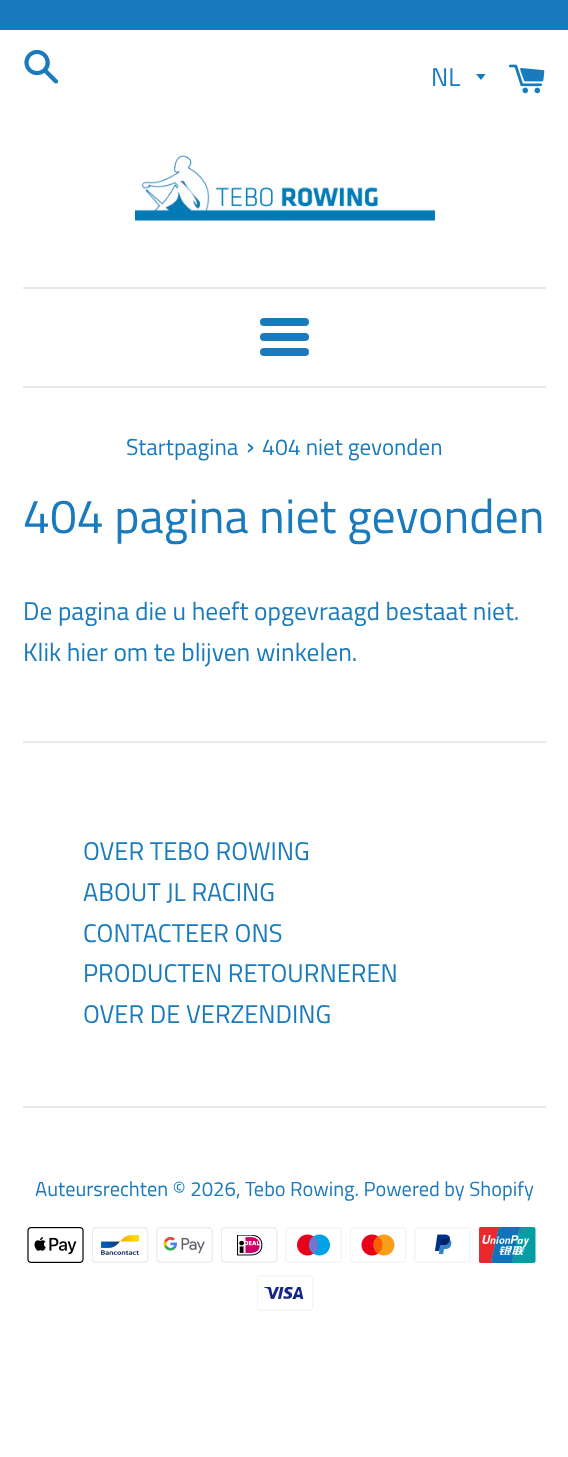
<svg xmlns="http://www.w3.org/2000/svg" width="568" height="1457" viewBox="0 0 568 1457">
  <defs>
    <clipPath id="clip1"><path d="M476 74h12v7H476z"/></clipPath>
  </defs>
  <rect width="100%" height="100%" fill="#fff"/>
  <path d="M0 0h568v30H0z" fill="#197bbd"/>
  <image x="24" y="49" width="35" height="35" href="img/1.png"/>
  <g clip-path="url(#clip1)">
    <path d="M475.5 73.5L481 80L486 73.5Z" fill="#197bbd"/>
  </g>
  <image x="509" y="64" width="36" height="30" href="img/2.png"/>
  <image x="135" y="155" width="300" height="66" href="img/3.png"/>
  <path d="M23 287h523v2H23z" fill="#e8e8e8"/>
  <rect x="260" y="318" width="49" height="8" rx="4" fill="#197bbd"/>
  <rect x="260" y="333" width="49" height="8" rx="4" fill="#197bbd"/>
  <rect x="260" y="348" width="49" height="8" rx="4" fill="#197bbd"/>
  <path d="M23 386h523v2H23z" fill="#e8e8e8"/>
  <path d="M23 741h523v2H23z" fill="#e8e8e8"/>
  <path d="M23 1106h523v2H23z" fill="#e8e8e8"/>
  <image x="27" y="1227" width="57" height="36" href="img/4.png"/>
  <image x="92" y="1227" width="57" height="36" href="img/5.png"/>
  <image x="156" y="1227" width="57" height="36" href="img/6.png"/>
  <image x="221" y="1227" width="57" height="36" href="img/7.png"/>
  <image x="285" y="1227" width="57" height="36" href="img/8.png"/>
  <image x="350" y="1227" width="57" height="36" href="img/9.png"/>
  <image x="414" y="1227" width="57" height="36" href="img/10.png"/>
  <image x="479" y="1227" width="57" height="36" href="img/11.png"/>
  <image x="257" y="1275" width="57" height="36" href="img/12.png"/>
  <text x="431" y="86" font-family="Titillium Web" font-size="25.5" fill="#197bbd">NL</text>
  <text x="126" y="455" font-family="Titillium Web" font-size="23" fill="#197bbd">Startpagina</text>
  <text x="246" y="455" font-family="Titillium Web" font-size="28" fill="#197bbd">›</text>
  <text x="262" y="455" font-family="Titillium Web" font-size="23" fill="#197bbd">404 niet gevonden</text>
  <text x="23" y="533" font-family="Titillium Web" font-size="48" fill="#197bbd">404 pagina niet gevonden</text>
  <g font-family="Titillium Web" font-size="25.5" fill="#197bbd">
    <text x="23" y="620">De pagina die u heeft opgevraagd bestaat niet.</text>
    <text x="23" y="661">Klik hier om te blijven winkelen.</text>
    <text x="83" y="860">OVER TEBO ROWING</text>
    <text x="83" y="901">ABOUT JL RACING</text>
    <text x="83" y="942">CONTACTEER ONS</text>
    <text x="83" y="982">PRODUCTEN RETOURNEREN</text>
    <text x="83" y="1023">OVER DE VERZENDING</text>
  </g>
  <text x="35" y="1196" font-family="Titillium Web" font-size="20.4" fill="#197bbd">Auteursrechten © 2026, Tebo Rowing. Powered by Shopify</text>
</svg>
